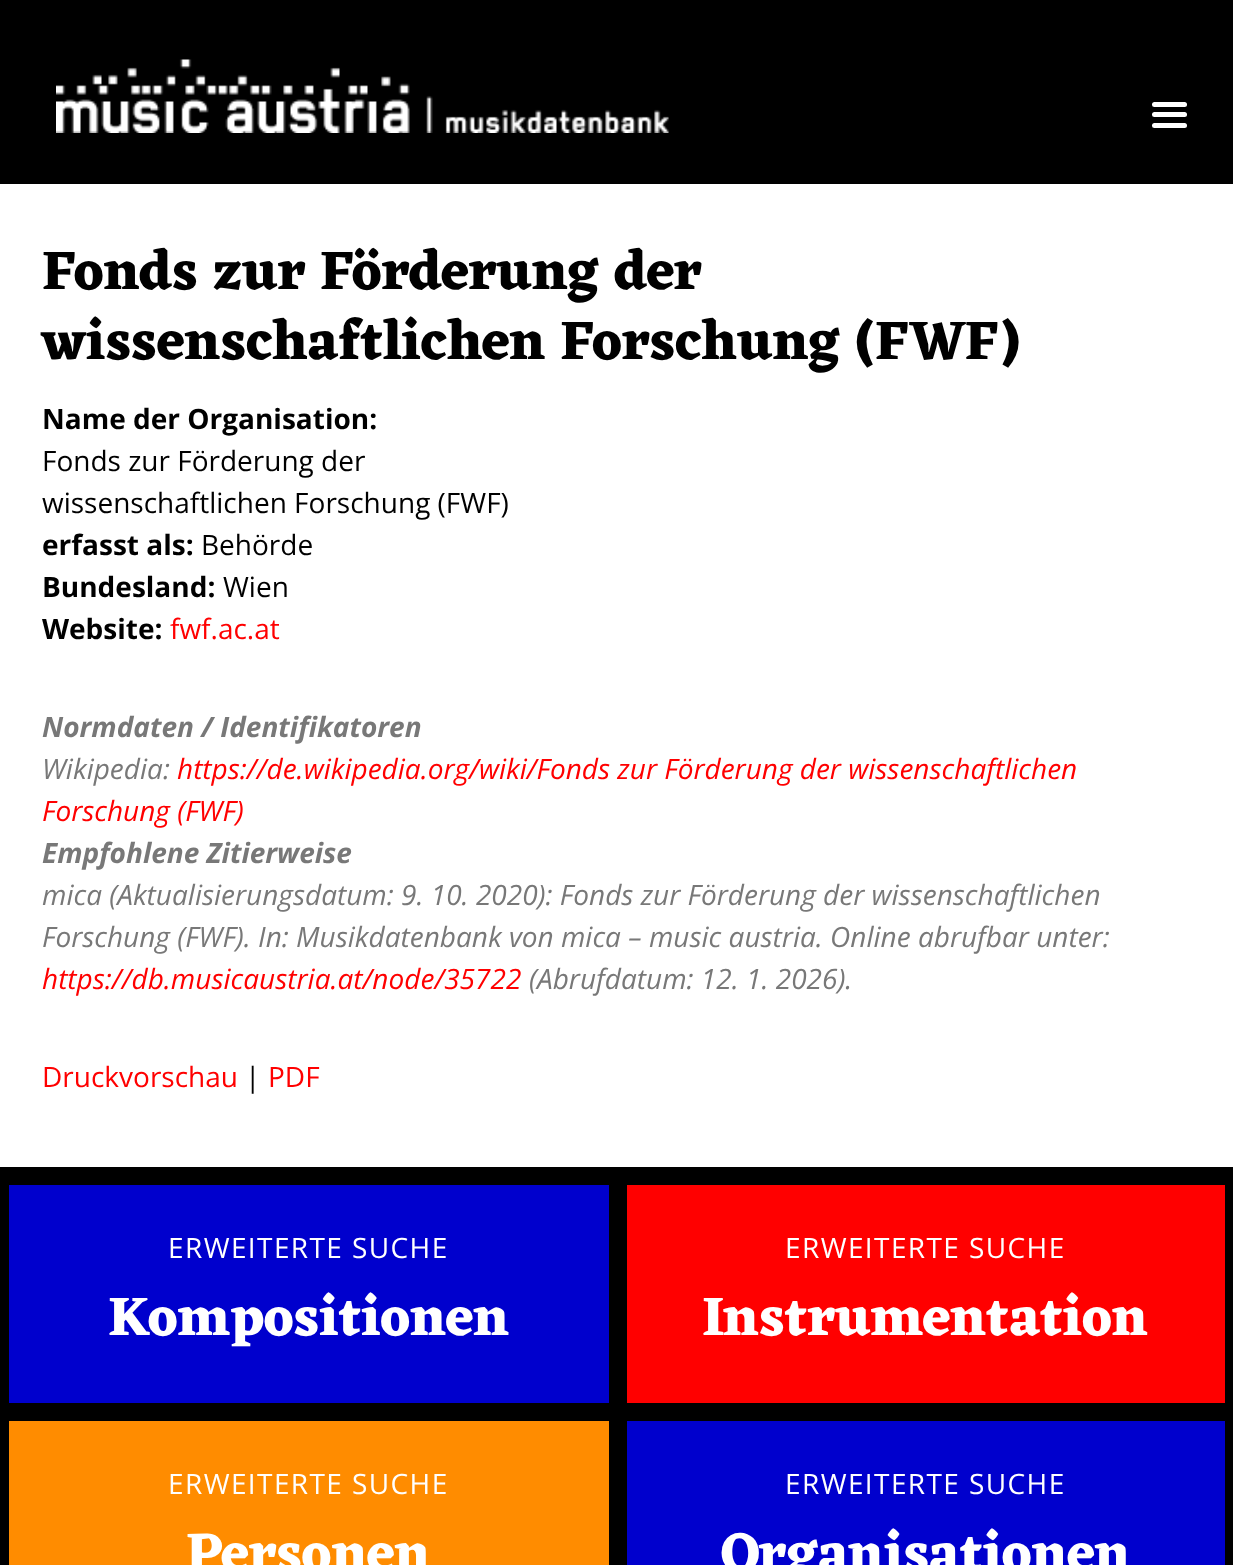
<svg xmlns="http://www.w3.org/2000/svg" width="1233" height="1565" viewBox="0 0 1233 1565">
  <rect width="100%" height="100%" fill="#fff"/>
  <path d="M0 0h1233v184H0z" fill="#000"/>
  <image x="56" y="59" width="613" height="74" href="img/1.png"/>
  <rect x="1152" y="102" width="35" height="5" rx="2.5" fill="#fff"/>
  <rect x="1152" y="112" width="35" height="5" rx="2.5" fill="#fff"/>
  <rect x="1152" y="123" width="35" height="5" rx="2.5" fill="#fff"/>
  <path d="M0 1167h1233v9H0z" fill="#000"/>
  <path d="M4.5 1180.5h609v227H4.5z" fill="#0000cd" stroke="#000" stroke-width="9"/>
  <path d="M622.5 1180.5h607v227H622.5z" fill="#f00" stroke="#000" stroke-width="9"/>
  <path d="M4.5 1416.5h609v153H4.5z" fill="#ff8c00" stroke="#000" stroke-width="9"/>
  <path d="M622.5 1416.5h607v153H622.5z" fill="#0000cd" stroke="#000" stroke-width="9"/>
  <g font-family="Eczar" font-size="56" font-weight="bold" fill="#000">
    <text x="42" y="289">Fonds zur Förderung der</text>
    <text x="42" y="359">wissenschaftlichen Forschung (FWF)</text>
  </g>
  <text x="42" y="429" font-family="Open Sans" font-size="28" font-weight="bold" fill="#000">Name der Organisation:</text>
  <g font-family="Open Sans" font-size="28" fill="#000">
    <text x="42" y="471">Fonds zur Förderung der</text>
    <text x="42" y="513">wissenschaftlichen Forschung (FWF)</text>
  </g>
  <text x="42" y="555" font-family="Open Sans" font-size="28" font-weight="bold" fill="#000">erfasst als:</text>
  <text x="201" y="555" font-family="Open Sans" font-size="28" fill="#000">Behörde</text>
  <text x="42" y="597" font-family="Open Sans" font-size="28" font-weight="bold" fill="#000">Bundesland:</text>
  <text x="223" y="597" font-family="Open Sans" font-size="28" fill="#000">Wien</text>
  <text x="42" y="639" font-family="Open Sans" font-size="28" font-weight="bold" fill="#000">Website:</text>
  <text x="170" y="639" font-family="Open Sans" font-size="28" fill="#f00">fwf.ac.at</text>
  <text x="42" y="737" font-family="Open Sans" font-size="28" font-weight="bold" font-style="italic" fill="#787878">Normdaten / Identifikatoren</text>
  <text x="42" y="779" font-family="Open Sans" font-size="28" font-style="italic" fill="#787878">Wikipedia:</text>
  <g font-family="Open Sans" font-size="28" font-style="italic" fill="#f00">
    <text x="177" y="779">https://de.wikipedia.org/wiki/Fonds zur Förderung der wissenschaftlichen</text>
    <text x="42" y="821">Forschung (FWF)</text>
  </g>
  <text x="42" y="863" font-family="Open Sans" font-size="28" font-weight="bold" font-style="italic" fill="#787878">Empfohlene Zitierweise</text>
  <g font-family="Open Sans" font-size="28" font-style="italic" fill="#787878">
    <text x="42" y="905">mica (Aktualisierungsdatum: 9. 10. 2020): Fonds zur Förderung der wissenschaftlichen</text>
    <text x="42" y="947">Forschung (FWF). In: Musikdatenbank von mica – music austria. Online abrufbar unter:</text>
  </g>
  <text x="42" y="989" font-family="Open Sans" font-size="28" font-style="italic" fill="#f00">https://db.musicaustria.at/node/35722</text>
  <text x="529" y="989" font-family="Open Sans" font-size="28" font-style="italic" fill="#787878">(Abrufdatum: 12. 1. 2026).</text>
  <text x="42" y="1087" font-family="Open Sans" font-size="28" fill="#f00">Druckvorschau</text>
  <text x="245" y="1087" font-family="Open Sans" font-size="28" fill="#000">|</text>
  <text x="268" y="1087" font-family="Open Sans" font-size="28" fill="#f00">PDF</text>
  <text x="168" y="1258" font-family="Open Sans" font-size="28" letter-spacing="1.4" fill="#fff">ERWEITERTE SUCHE</text>
  <text x="108" y="1335" font-family="Eczar" font-size="56" font-weight="bold" fill="#fff">Kompositionen</text>
  <text x="785" y="1258" font-family="Open Sans" font-size="28" letter-spacing="1.4" fill="#fff">ERWEITERTE SUCHE</text>
  <text x="702" y="1335" font-family="Eczar" font-size="56" font-weight="bold" fill="#fff">Instrumentation</text>
  <text x="168" y="1494" font-family="Open Sans" font-size="28" letter-spacing="1.4" fill="#fff">ERWEITERTE SUCHE</text>
  <text x="186" y="1571" font-family="Eczar" font-size="56" font-weight="bold" fill="#fff">Personen</text>
  <text x="785" y="1494" font-family="Open Sans" font-size="28" letter-spacing="1.4" fill="#fff">ERWEITERTE SUCHE</text>
  <text x="721" y="1571" font-family="Eczar" font-size="56" font-weight="bold" fill="#fff">Organisationen</text>
</svg>
